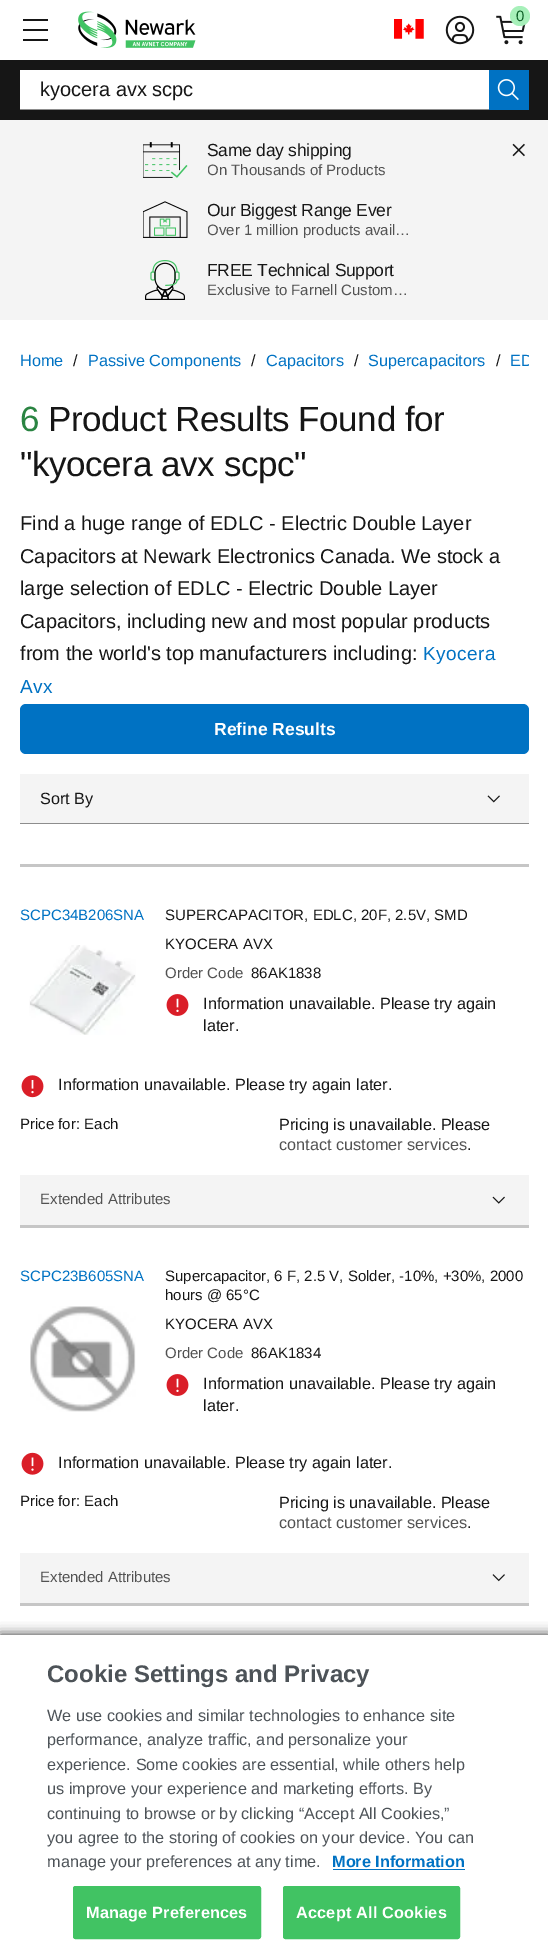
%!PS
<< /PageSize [548 1958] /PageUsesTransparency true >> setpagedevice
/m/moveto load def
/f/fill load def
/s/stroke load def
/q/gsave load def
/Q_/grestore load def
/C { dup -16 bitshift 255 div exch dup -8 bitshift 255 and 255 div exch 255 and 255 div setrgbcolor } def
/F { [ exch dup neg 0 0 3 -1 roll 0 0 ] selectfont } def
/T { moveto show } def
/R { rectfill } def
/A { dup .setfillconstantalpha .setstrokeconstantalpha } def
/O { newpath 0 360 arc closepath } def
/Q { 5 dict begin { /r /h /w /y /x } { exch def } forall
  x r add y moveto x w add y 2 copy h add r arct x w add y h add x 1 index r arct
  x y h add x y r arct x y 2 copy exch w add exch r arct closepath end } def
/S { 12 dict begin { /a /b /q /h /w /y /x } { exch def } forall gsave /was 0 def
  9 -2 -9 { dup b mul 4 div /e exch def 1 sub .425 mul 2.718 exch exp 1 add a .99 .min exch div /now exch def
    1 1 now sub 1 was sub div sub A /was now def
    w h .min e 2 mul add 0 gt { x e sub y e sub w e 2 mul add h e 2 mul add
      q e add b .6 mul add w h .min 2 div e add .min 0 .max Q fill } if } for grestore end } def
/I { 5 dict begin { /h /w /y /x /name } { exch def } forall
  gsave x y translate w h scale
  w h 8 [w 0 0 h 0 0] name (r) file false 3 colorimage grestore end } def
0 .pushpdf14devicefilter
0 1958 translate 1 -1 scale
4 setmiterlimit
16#FFFFFF C
0 0 548 1958 R
16#161616 C
23 19 25 2 R
23 29 25 2 R
23 39 25 2 R
(1.rgb) 78 11 118 37 I
(2.rgb) 394 19 30 20 I
(3.rgb) 445 15 30 30 I
(4.rgb) 496 15 30 30 I
16#A7F0BA C
520 16 10 O f
/LiberationSans-Regular 15 F
16#0E6027 C
(0) 516 21 T
16#161616 C
0 60 548 60 R
16#FFFFFF C
20 70 469 39 R
16#8D8D8D C
20 109 469 1 R
/LiberationSans-Regular 20 F
16#161616 C
(kyocera avx scpc) 40 96 T
16#0072C3 C
489 70 40 40 R
(5.rgb) 497 79 22 22 I
16#F4F4F4 C
0 120 548 200 R
(6.rgb) 143 142 45 36 I
/LiberationSans-Regular 17.5 F
16#161616 C
207 156 m -.25 0 (Same day shipping) ashow
q
208 161 205 19 rectclip
/LiberationSans-Regular 15 F
16#525252 C
(On Thousands of Products) 207 175 T
Q_
(7.rgb) 143 201 45 37 I
q
208 200 205 21 rectclip
207 216 m -.25 0 (Our Biggest Range Ever) ashow
Q_
q
208 221 205 19 rectclip
/LiberationSans-Regular 15 F
16#525252 C
(Over 1 million products avail…) 207 235 T
Q_
(8.rgb) 145 260 40 40 I
207 276 m -.25 0 (FREE Technical Support) ashow
/LiberationSans-Regular 15 F
16#525252 C
(Exclusive to Farnell Custom…) 207 295 T
(9.rgb) 512 143 13 14 I
/LiberationSans-Regular 16.25 F
16#0072C3 C
(Home) 20 366 T
16#161616 C
(/) 73 366 T
16#0072C3 C
(Passive Components) 88 366 T
16#161616 C
(/) 251 366 T
16#0072C3 C
(Capacitors) 266 366 T
16#161616 C
(/) 354 366 T
16#0072C3 C
(Supercapacitors) 368 366 T
16#161616 C
(/) 496 366 T
q
20 350 509 38 rectclip
16#0072C3 C
(ED) 510 366 T
Q_
/LiberationSans-Regular 35 F
16#2A8442 C
20 431 m -.4 0 (6) ashow
16#161616 C
48 431 m -.4 0 (Product Results Found for) ashow
20 476 m -.4 0 ("kyocera avx scpc") ashow
/LiberationSans-Regular 20 F
(Find a huge range of EDLC - Electric Double Layer) 20 530 T
(Capacitors at Newark Electronics Canada. We stock a) 20 563 T
(large selection of EDLC - Electric Double Layer) 20 595 T
(Capacitors, including new and most popular products) 20 628 T
(from the world's top manufacturers including:) 20 660 T
/LiberationSans-Regular 19 F
16#0072C3 C
423 660 m .5 0 (Kyocera) ashow
20 693 m .5 0 (Avx) ashow
20 704 509 50 6 Q f
/LiberationSans-Bold 17.5 F
16#FFFFFF C
(Refine Results) 214 735 T
16#F4F4F4 C
20 774 509 49 R
16#8D8D8D C
20 823 509 1 R
/LiberationSans-Regular 16.25 F
16#161616 C
(Sort By) 40 804 T
(10.rgb) 487 795 13 8 I
16#C6C6C6 C
20 864 509 3 R
/LiberationSans-Regular 15 F
16#0072C3 C
(SCPC34B206SNA) 20 920 T
(11.rgb) 29 945 107 90 I
16#161616 C
(SUPERCAPACITOR, EDLC, 20F, 2.5V, SMD) 165 920 T
(KYOCERA AVX) 165 949 T
16#525252 C
(Order Code) 165 978 T
16#161616 C
(86AK1838) 251 978 T
(12.rgb) 166 994 23 22 I
/LiberationSans-Regular 16.25 F
(Information unavailable. Please try again) 203 1009 T
(later.) 203 1031 T
(13.rgb) 21 1075 23 23 I
(Information unavailable. Please try again later.) 58 1090 T
/LiberationSans-Regular 15 F
(Price for: Each) 20 1129 T
/LiberationSans-Regular 16.25 F
(Pricing is unavailable. Please) 279 1130 T
16#525252 C
(contact customer services) 279 1150 T
16#161616 C
(.) 467 1150 T
16#F4F4F4 C
20 1175 509 50 R
/LiberationSans-Regular 15 F
16#525252 C
(Extended Attributes) 40 1204 T
(14.rgb) 492 1196 13 8 I
16#C6C6C6 C
20 1225 509 3 R
16#0072C3 C
(SCPC23B605SNA) 20 1281 T
(15.rgb) 30 1306 106 106 I
16#161616 C
(Supercapacitor, 6 F, 2.5 V, Solder, -10%, +30%, 2000) 165 1281 T
(hours @ 65°C) 165 1300 T
(KYOCERA AVX) 165 1329 T
16#525252 C
(Order Code) 165 1358 T
16#161616 C
(86AK1834) 251 1358 T
(12.rgb) 166 1374 23 22 I
/LiberationSans-Regular 16.25 F
(Information unavailable. Please try again) 203 1389 T
(later.) 203 1411 T
(16.rgb) 21 1452 23 23 I
(Information unavailable. Please try again later.) 58 1468 T
/LiberationSans-Regular 15 F
(Price for: Each) 20 1506 T
/LiberationSans-Regular 16.25 F
(Pricing is unavailable. Please) 279 1508 T
16#525252 C
(contact customer services) 279 1528 T
16#161616 C
(.) 467 1528 T
16#F4F4F4 C
20 1553 509 50 R
/LiberationSans-Regular 15 F
16#525252 C
(Extended Attributes) 40 1582 T
(17.rgb) 492 1574 13 8 I
16#C6C6C6 C
20 1603 509 3 R
16#000000 C
0 1635 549 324 0 6 .8 S
16#FFFFFF C
0 1635 548 323 R
/LiberationSans-Bold 24 F
16#4D5358 C
(Cookie Settings and Privacy) 47 1682 T
/LiberationSans-Regular 16.25 F
(We use cookies and similar technologies to enhance site) 47 1721 T
(performance, analyze traffic, and personalize your) 47 1745 T
(experience. Some cookies are essential, while others help) 47 1770 T
(us improve your experience and marketing efforts. By) 47 1794 T
(continuing to browse or by clicking “Accept All Cookies,”) 47 1819 T
(you agree to the storing of cookies on your device. You can) 47 1843 T
(manage your preferences at any time.) 47 1867 T
/LiberationSans-Bold 16.25 F
16#0072C3 C
(More Information) 332 1867 T
333 1869 132 1 R
16#41C363 C
73.5 1886.5 187 52 2 Q q f Q_
s
16#FFFFFF C
86 1918 m .2 0 (Manage Preferences) ashow
16#41C363 C
283.5 1886.5 176 52 2 Q q f Q_
s
16#FFFFFF C
296 1918 m .2 0 (Accept All Cookies) ashow
.poppdf14devicefilter showpage
